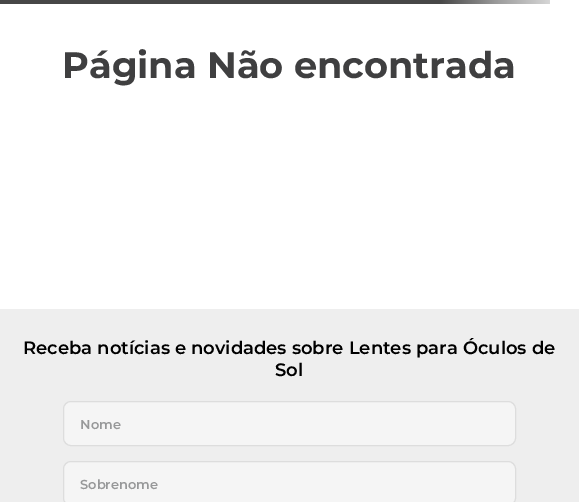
%!PS
<< /PageSize [579 502] >> setpagedevice
/m/moveto load def
/l/rlineto load def
/z/closepath load def
/f/fill load def
/s/stroke load def
/q/gsave load def
/Q_/grestore load def
/C { dup -16 bitshift 255 div exch dup -8 bitshift 255 and 255 div exch 255 and 255 div setrgbcolor } def
/F { [ exch dup neg 0 0 3 -1 roll 0 0 ] selectfont } def
/T { moveto show } def
/R { rectfill } def
/Q { 5 dict begin { /r /h /w /y /x } { exch def } forall
  x r add y moveto x w add y 2 copy h add r arct x w add y h add x 1 index r arct
  x y h add x y r arct x y 2 copy exch w add exch r arct closepath end } def
0 502 translate 1 -1 scale
4 setmiterlimit
16#FFFFFF C
0 0 579 502 R
q 0 0 m 550 0 l 0 4 l -550 0 l z clip newpath
<< /ShadingType 2 /ColorSpace /DeviceRGB /Coords [0 2 550 2] /Extend [true true] /Function << /FunctionType 3 /Domain [0 1] /Functions [<< /FunctionType 2 /Domain [0 1] /C0 [.278 .278 .278] /C1 [.278 .278 .278] /N 1 >> << /FunctionType 2 /Domain [0 1] /C0 [.278 .278 .278] /C1 [.6 .6 .6] /N 1 >> << /FunctionType 2 /Domain [0 1] /C0 [.6 .6 .6] /C1 [.839 .839 .839] /N 1 >>] /Bounds [.8 .9] /Encode [0 1 0 1 0 1] >> >> shfill Q_
/Montserrat-Bold 36.75 F
16#3F3F40 C
(Página Não encontrada) 62 78 T
16#EEEEEE C
0 309 579 193 R
/Montserrat-SemiBold 18 F
16#000000 C
(Receba notícias e novidades sobre Lentes para Óculos de) 23 354 T
(Sol) 275 376 T
16#F5F5F5 C
63.5 401.5 452 44 7.5 Q q f Q_
16#DDDDDD C
s
/Montserrat-SemiBold 13 F
16#979899 C
(Nome) 80 429 T
16#F5F5F5 C
63.5 461.5 452 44 7.5 Q q f Q_
16#DDDDDD C
s
16#979899 C
(Sobrenome) 80 489 T
showpage
